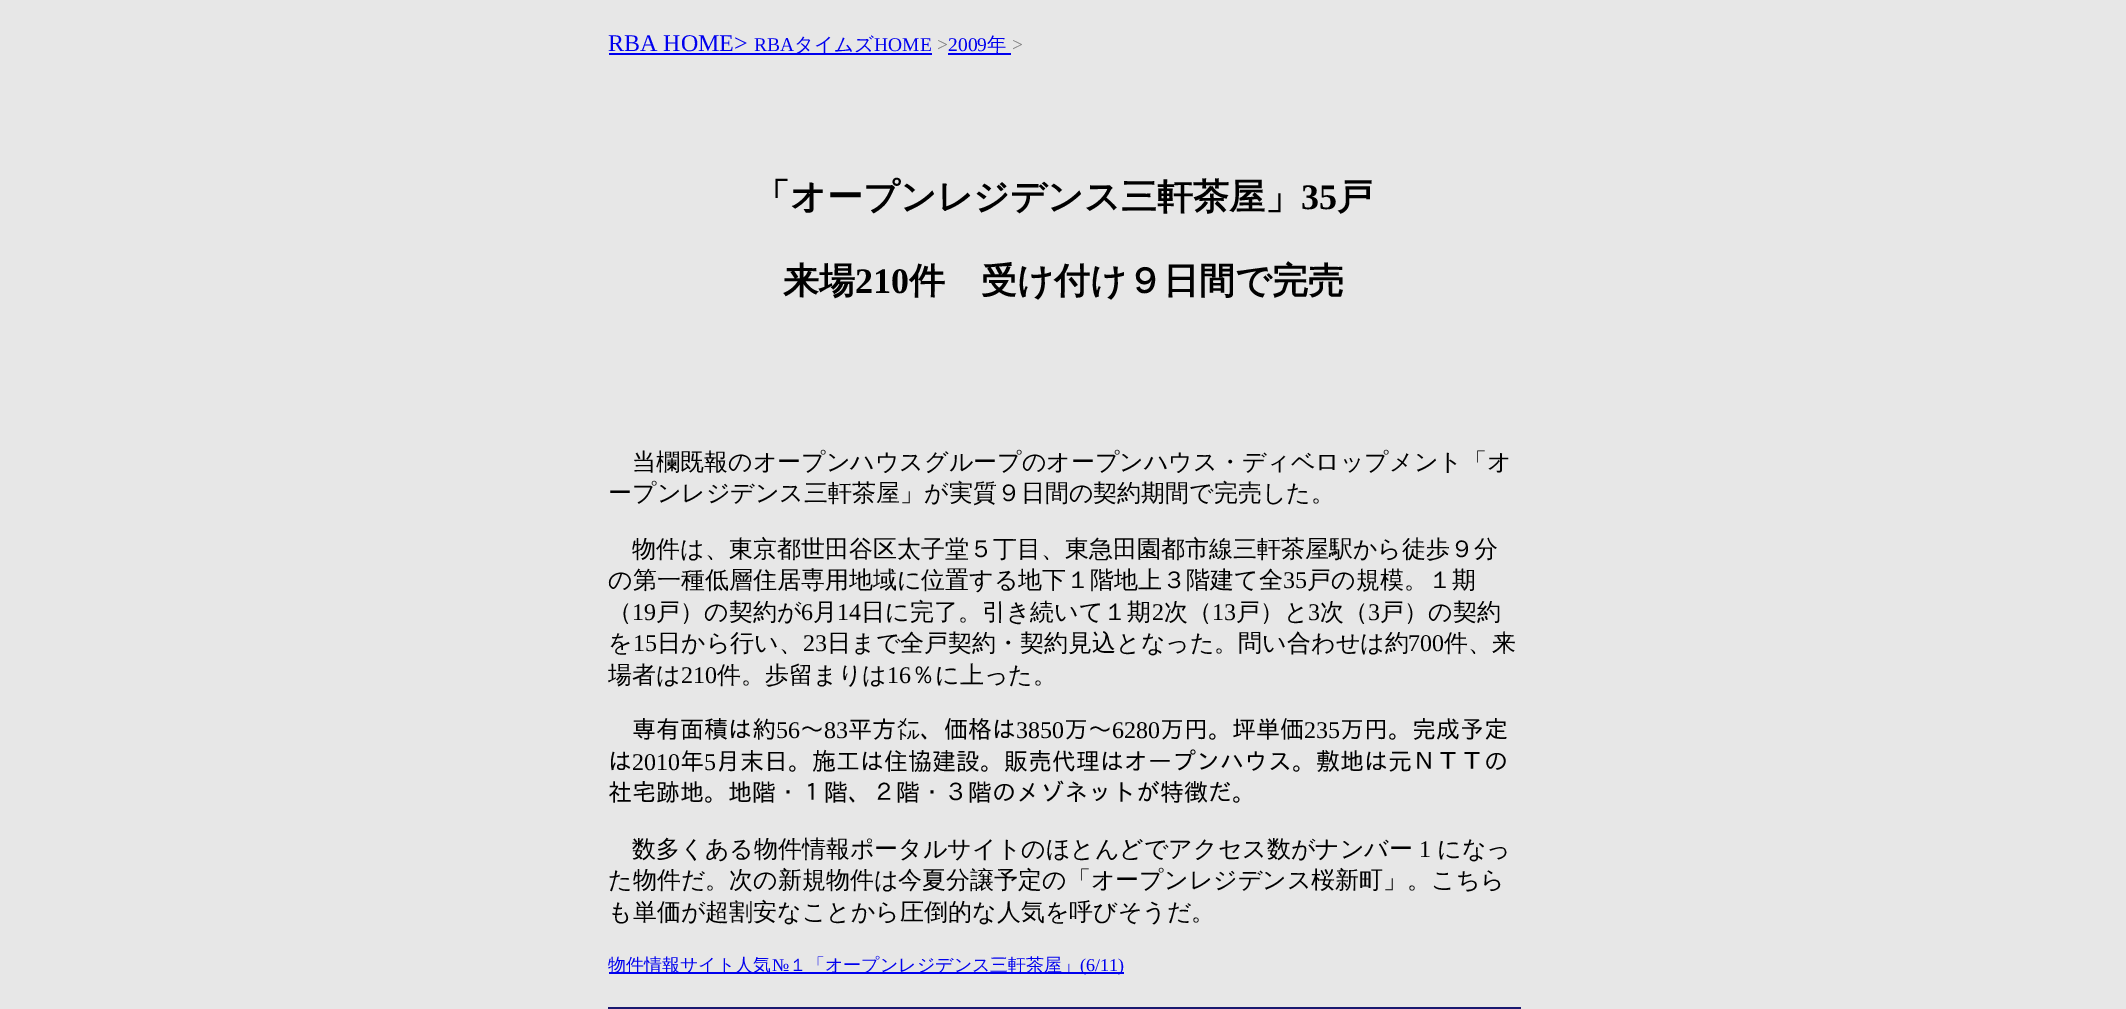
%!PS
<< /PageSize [2126 1009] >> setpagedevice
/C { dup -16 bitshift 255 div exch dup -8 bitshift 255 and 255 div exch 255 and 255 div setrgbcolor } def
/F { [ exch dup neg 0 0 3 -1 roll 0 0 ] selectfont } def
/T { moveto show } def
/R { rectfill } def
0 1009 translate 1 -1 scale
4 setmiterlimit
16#E7E7E7 C
0 0 2126 1009 R
/LiberationSerif-Regular 24 F
16#0000EE C
(RBA HOME>) 608 51 T
609 53 323 2 R
/LiberationSerif-Regular 19.5 F
(RBA) 754 51 T
/WenQuanYiZenHei-Medium 19.5 F
(タイムズ) 794 51 T
/LiberationSerif-Regular 19.5 F
(HOME) 874 51 T
16#808080 C
(>) 937 51 T
16#0000EE C
(2009) 948 51 T
948 53 63 2 R
/WenQuanYiZenHei-Medium 19.5 F
(年) 987 51 T
/LiberationSerif-Regular 19.5 F
16#808080 C
(>) 1012 51 T
/WenQuanYiZenHei-Bold 36 F
16#000000 C
(「オープンレジデンス三軒茶屋」) 754 209 T
/LiberationSerif-Bold 36 F
(35) 1301 209 T
/WenQuanYiZenHei-Bold 36 F
(戸) 1337 209 T
(来場) 783 293 T
/LiberationSerif-Bold 36 F
(210) 855 293 T
/WenQuanYiZenHei-Bold 36 F
(件) 909 293 T
(受け付け９日間で完売) 981 293 T
/WenQuanYiZenHei-Medium 24 F
(当欄既報のオープンハウスグループのオープンハウス・ディベロップメント「オ) 632 470 T
(ープンレジデンス三軒茶屋」が実質９日間の契約期間で完売した。) 608 501 T
(物件は、東京都世田谷区太子堂５丁目、東急田園都市線三軒茶屋駅から徒歩９分) 632 557 T
(の第一種低層住居専用地域に位置する地下１階地上３階建て全) 608 588 T
/LiberationSerif-Regular 24 F
(35) 1283 588 T
/WenQuanYiZenHei-Medium 24 F
(戸の規模。１期) 1307 588 T
(（) 608 620 T
/LiberationSerif-Regular 24 F
(19) 632 620 T
/WenQuanYiZenHei-Medium 24 F
(戸）の契約が) 656 620 T
/LiberationSerif-Regular 24 F
(6) 801 620 T
/WenQuanYiZenHei-Medium 24 F
(月) 813 620 T
/LiberationSerif-Regular 24 F
(14) 837 620 T
/WenQuanYiZenHei-Medium 24 F
(日に完了。引き続いて１期) 861 620 T
/LiberationSerif-Regular 24 F
(2) 1152 620 T
/WenQuanYiZenHei-Medium 24 F
(次（) 1164 620 T
/LiberationSerif-Regular 24 F
(13) 1212 620 T
/WenQuanYiZenHei-Medium 24 F
(戸）と) 1236 620 T
/LiberationSerif-Regular 24 F
(3) 1308 620 T
/WenQuanYiZenHei-Medium 24 F
(次（) 1320 620 T
/LiberationSerif-Regular 24 F
(3) 1368 620 T
/WenQuanYiZenHei-Medium 24 F
(戸）の契約) 1380 620 T
(を) 608 651 T
/LiberationSerif-Regular 24 F
(15) 633 651 T
/WenQuanYiZenHei-Medium 24 F
(日から行い、) 657 651 T
/LiberationSerif-Regular 24 F
(23) 803 651 T
/WenQuanYiZenHei-Medium 24 F
(日まで全戸契約・契約見込となった。問い合わせは約) 827 651 T
/LiberationSerif-Regular 24 F
(700) 1408 651 T
/WenQuanYiZenHei-Medium 24 F
(件、来) 1444 651 T
(場者は) 608 683 T
/LiberationSerif-Regular 24 F
(210) 681 683 T
/WenQuanYiZenHei-Medium 24 F
(件。歩留まりは) 717 683 T
/LiberationSerif-Regular 24 F
(16) 887 683 T
/WenQuanYiZenHei-Medium 24 F
(％に上った。) 911 683 T
/IPAGothic-Regular 24 F
(専有面積は約) 632 738 T
/LiberationSerif-Regular 24 F
(56) 776 738 T
/IPAGothic-Regular 24 F
(～) 800 738 T
/LiberationSerif-Regular 24 F
(83) 824 738 T
/IPAGothic-Regular 24 F
(平方㍍、価格は) 848 738 T
/LiberationSerif-Regular 24 F
(3850) 1016 738 T
/IPAGothic-Regular 24 F
(万～) 1064 738 T
/LiberationSerif-Regular 24 F
(6280) 1112 738 T
/IPAGothic-Regular 24 F
(万円。坪単価) 1160 738 T
/LiberationSerif-Regular 24 F
(235) 1304 738 T
/IPAGothic-Regular 24 F
(万円。完成予定) 1340 738 T
(は) 608 770 T
/LiberationSerif-Regular 24 F
(2010) 632 770 T
/IPAGothic-Regular 24 F
(年 月末日。施工は住協建設。販売代理はオープンハウス。敷地は元ＮＴＴの) 680 770 T
/LiberationSerif-Regular 24 F
(5) 704 770 T
/IPAGothic-Regular 24 F
(社宅跡地。地階・１階、２階・３階のメゾネットが特徴だ。) 608 801 T
/WenQuanYiZenHei-Medium 24 F
(数多くある物件情報ポータルサイトのほとんどでアクセス数がナンバー) 632 857 T
/LiberationSerif-Regular 24 F
(1) 1419 857 T
/WenQuanYiZenHei-Medium 24 F
(になっ) 1437 857 T
(た物件だ。次の新規物件は今夏分譲予定の「オープンレジデンス桜新町」。こちら) 608 888 T
(も単価が超割安なことから圧倒的な人気を呼びそうだ。) 608 920 T
16#0000EE C
609 972 515 2 R
/WenQuanYiZenHei-Medium 18 F
(物件情報サイト人気) 608 971 T
/LiberationSerif-Regular 18 F
(№) 772 971 T
/WenQuanYiZenHei-Medium 18 F
(１「オープンレジデンス三軒茶屋」) 789 971 T
/LiberationSerif-Regular 18 F
(\(6/11\)) 1080 971 T
16#191970 C
608 1007 913 2 R
showpage
